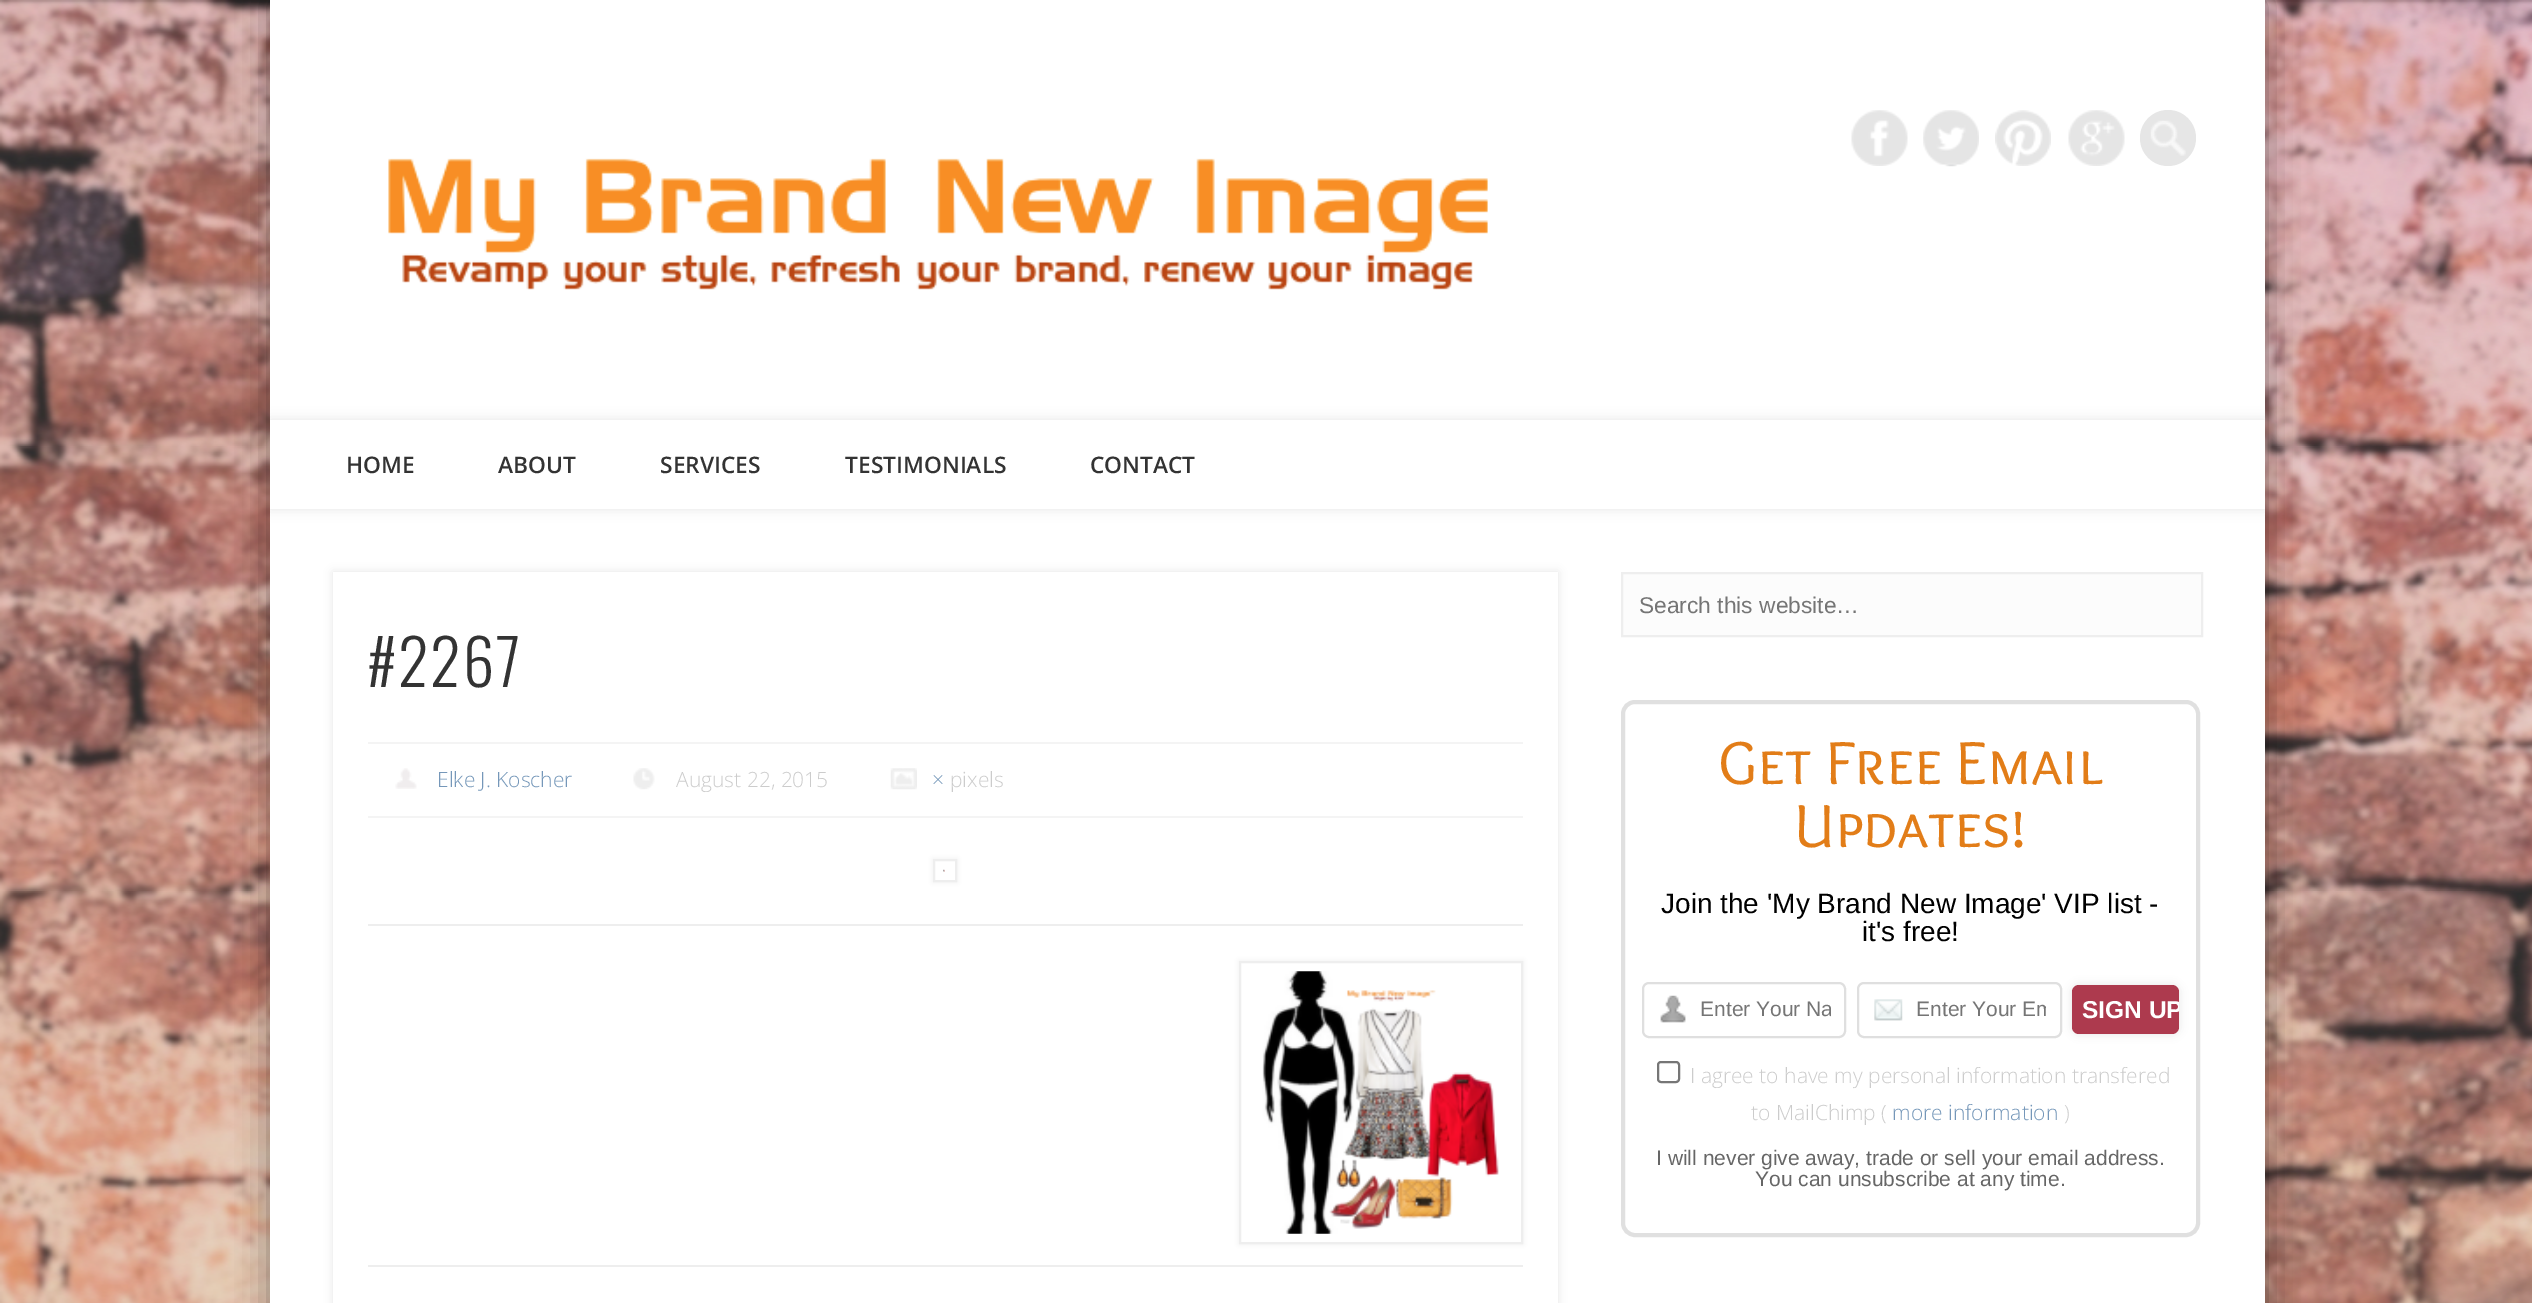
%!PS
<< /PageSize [2532 1303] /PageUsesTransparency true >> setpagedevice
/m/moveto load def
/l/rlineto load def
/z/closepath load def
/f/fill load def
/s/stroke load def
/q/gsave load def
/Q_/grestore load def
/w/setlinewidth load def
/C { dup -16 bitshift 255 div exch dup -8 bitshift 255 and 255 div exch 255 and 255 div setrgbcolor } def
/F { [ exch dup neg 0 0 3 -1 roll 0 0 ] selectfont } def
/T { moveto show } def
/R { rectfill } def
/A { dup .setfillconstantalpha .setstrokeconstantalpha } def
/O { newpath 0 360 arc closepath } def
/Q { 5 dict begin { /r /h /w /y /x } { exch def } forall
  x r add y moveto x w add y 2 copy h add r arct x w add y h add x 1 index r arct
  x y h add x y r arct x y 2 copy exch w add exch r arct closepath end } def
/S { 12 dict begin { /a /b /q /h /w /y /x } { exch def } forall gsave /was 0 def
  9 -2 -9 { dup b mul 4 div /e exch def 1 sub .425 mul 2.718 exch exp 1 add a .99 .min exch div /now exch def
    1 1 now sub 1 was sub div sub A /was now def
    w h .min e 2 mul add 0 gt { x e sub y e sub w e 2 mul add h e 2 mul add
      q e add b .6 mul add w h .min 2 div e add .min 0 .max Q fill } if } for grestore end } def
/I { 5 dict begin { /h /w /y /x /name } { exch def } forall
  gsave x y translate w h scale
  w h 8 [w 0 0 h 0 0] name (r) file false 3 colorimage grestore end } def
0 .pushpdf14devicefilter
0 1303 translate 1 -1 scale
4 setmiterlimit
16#FFFFFF C
0 0 2532 1303 R
(1.rgb) 0 0 2532 1303 I
16#000000 C
270 0 1995 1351 0 16 .4 S
16#FFFFFF C
270 0 1995 1303 R
(2.rgb) 1851 110 57 56 I
(3.rgb) 1923 110 56 57 I
(4.rgb) 1995 110 56 56 I
(5.rgb) 2068 110 57 56 I
16#E6E6E6 C
2168 138 28 O f
(6.rgb) 2150 120 36 36 I
(7.rgb) 388 158 1100 132 I
q
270 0 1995 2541 rectclip
16#000000 C
270 420 1995 89 0 6 .1 S
Q_
16#FFFFFF C
270 420 1995 89 R
/OpenSans-SemiBold 22.75 F
16#333333 C
(HOME) 346 473 T
(ABOUT) 498 473 T
(SERVICES) 660 473 T
(TESTIMONIALS) 845 473 T
(CONTACT) 1090 473 T
16#000000 C
333 572 1225 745 0 4.5 .1 S
16#FFFFFF C
333 572 1225 731 R
/Oswald-Light 63 F
16#333333 C
367 687 m 1.75 0 (#2267) ashow
16#F4F4F4 C
368 742 1155 2 R
368 816 1155 2 R
(8.rgb) 395 768 22 21 I
/OpenSans-Light 21 F
16#7597B9 C
(Elke J. Koscher) 437 787 T
(9.rgb) 633 768 22 22 I
16#CCCCCC C
(August 22, 2015) 676 787 T
(10.rgb) 890 768 27 22 I
16#7597B9 C
(×) 932 787 T
16#CCCCCC C
(pixels) 950 787 T
16#EEEEEE C
933 859 24 23 0 2.5 1 S
16#FFFFFF C
934 860 m 22 0 l 0 21 l -22 0 l z q f Q_
16#EEEEEE C
2 w
s
(11.rgb) 943 869 2 3 I
368 924 1155 2 R
368 1265 1155 2 R
1239 961 284 283 0 2.5 1 S
16#FFFFFF C
1240 962 m 282 0 l 0 281 l -282 0 l z q f Q_
16#EEEEEE C
s
(12.rgb) 1262 971 237 263 I
16#FCFCFC C
1622 573 m 580 0 l 0 63 l -580 0 l z q f Q_
16#EEEEEE C
s
/LiberationSans-Regular 22.75 F
16#757575 C
(Search this website…) 1639 613 T
16#E0E0E0 C
4 w
1623 702 575 533 12 Q s
/OverlockSC-Regular 63 F
16#E27D18 C
(Get Free Email) 1718 784 T
(Updates!) 1794 847 T
/LiberationSans-Regular 28 F
16#000000 C
(Join the 'My Brand New Image' VIP list -) 1661 913 T
(it's free!) 1862 941 T
(13.rgb) 1660 995 26 28 I
16#DFDFDF C
2 w
1643 983 202 54 6 Q s
q
1701 998 130 24 rectclip
/LiberationSans-Regular 21 F
16#757575 C
(Enter Your Na) 1700 1016 T
Q_
(14.rgb) 1874 999 29 22 I
1858 983 203 54 6 Q s
q
1916 998 130 24 rectclip
/LiberationSans-Regular 21 F
16#757575 C
(Enter Your Em) 1916 1016 T
Q_
16#000000 C
2072 985 107 49 7 4.5 .1 S
16#AD3A4E C
2072 985 107 49 7 Q f
q
2072 985 107 49 7 Q clip newpath
/LiberationSans-Bold 24.5 F
16#FFFFFF C
(SIGN UP) 2082 1018 T
Q_
16#767676 C
1658 1062 21 20 3 Q s
/OpenSans-Light 21 F
16#CCCCCC C
(I agree to have my personal information transfered) 1690 1083 T
(to MailChimp \() 1751 1120 T
16#7597B9 C
(more information) 1892 1120 T
16#CCCCCC C
(\)) 2064 1120 T
/LiberationSans-Regular 21 F
16#666666 C
(I will never give away, trade or sell your email address.) 1656 1165 T
(You can unsubscribe at any time.) 1755 1186 T
.poppdf14devicefilter showpage
